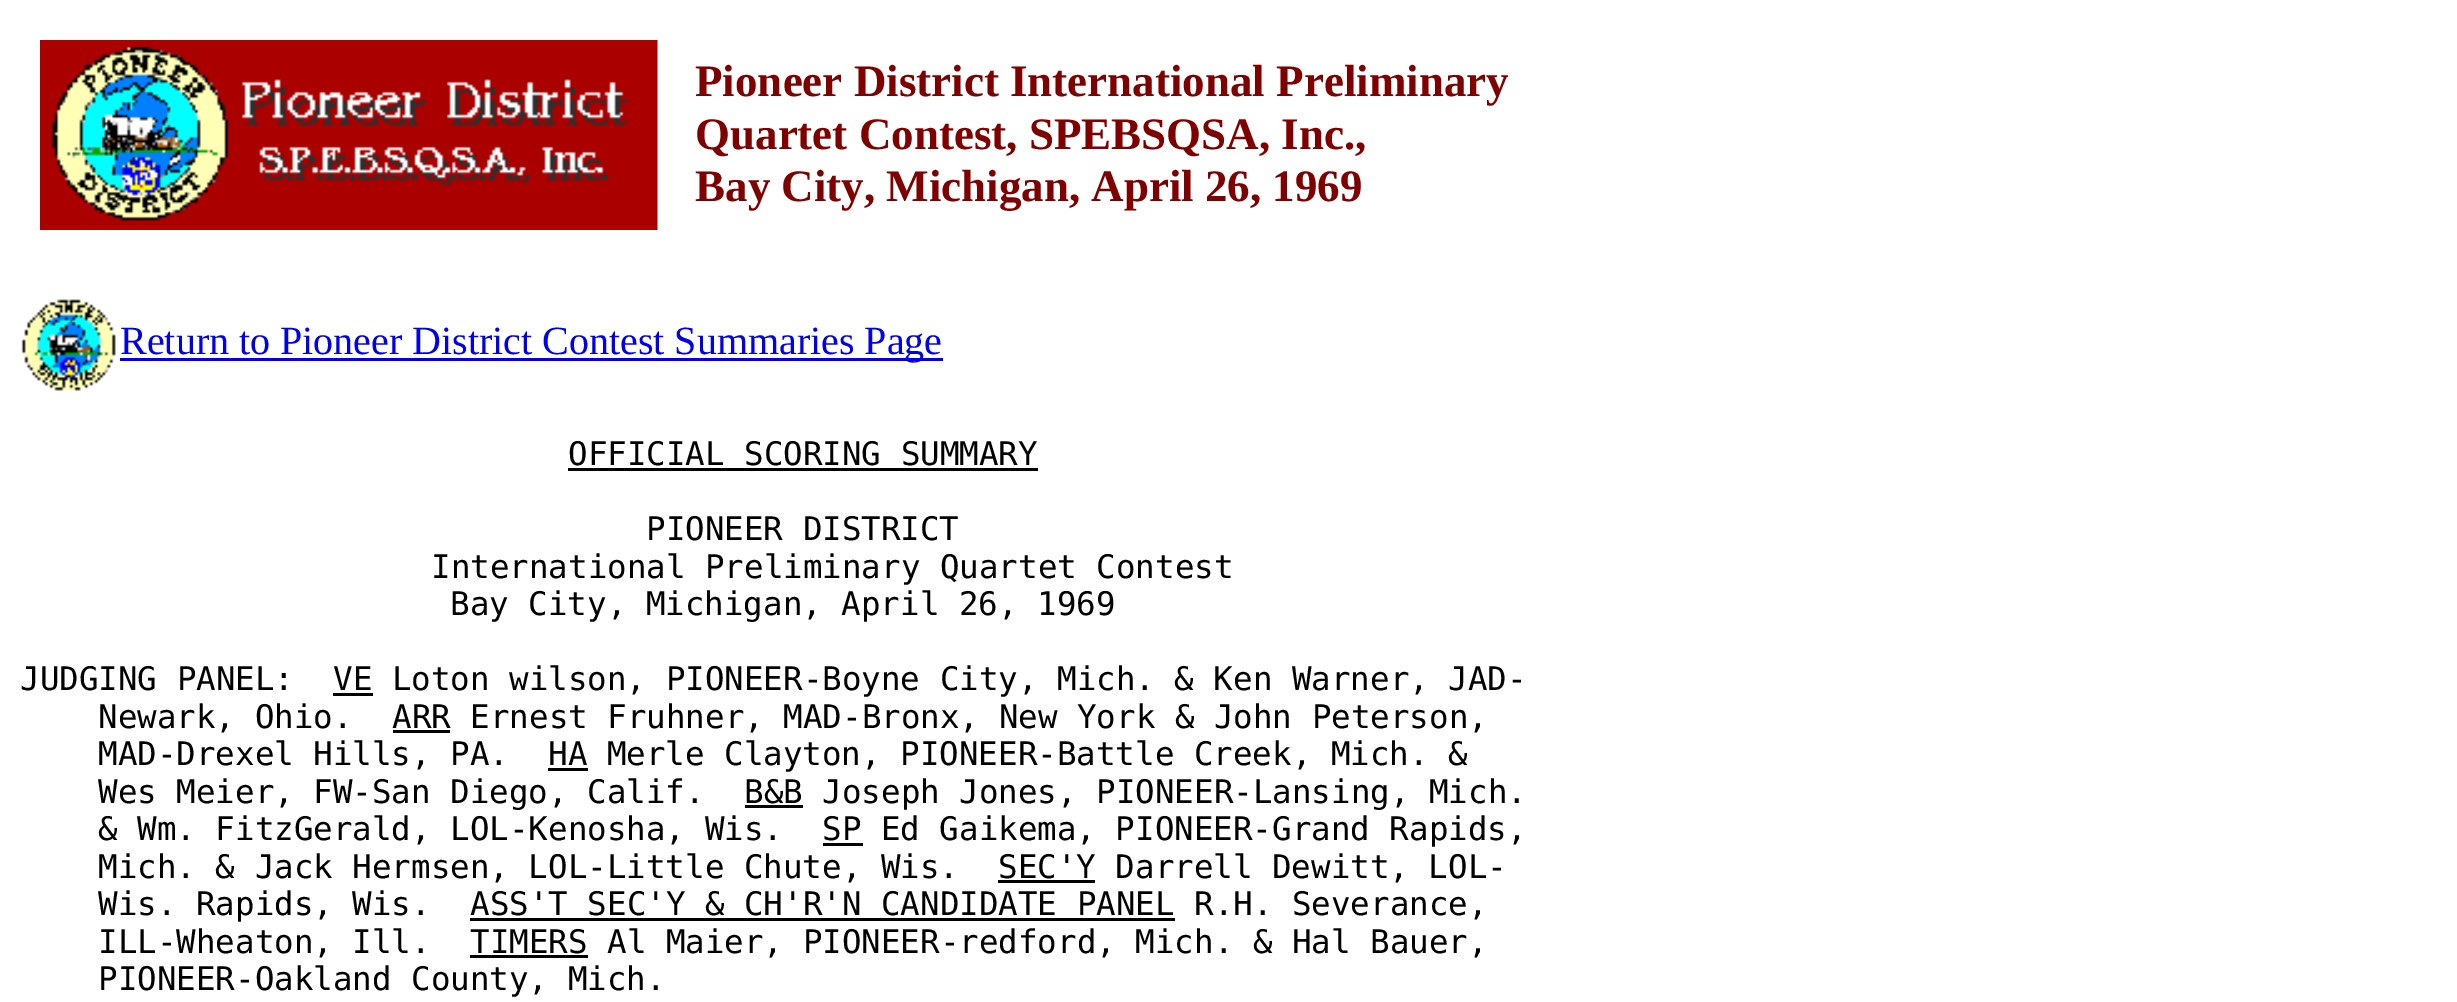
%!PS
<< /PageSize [2457 1002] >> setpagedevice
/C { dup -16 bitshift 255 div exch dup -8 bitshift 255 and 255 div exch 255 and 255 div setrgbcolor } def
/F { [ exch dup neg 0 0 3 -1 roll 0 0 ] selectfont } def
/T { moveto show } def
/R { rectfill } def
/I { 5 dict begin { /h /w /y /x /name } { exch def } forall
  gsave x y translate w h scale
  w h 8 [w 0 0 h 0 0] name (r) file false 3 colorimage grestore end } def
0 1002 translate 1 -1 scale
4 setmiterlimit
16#FFFFFF C
0 0 2457 1002 R
(1.rgb) 40 40 618 190 I
/LiberationSerif-Bold 45 F
16#800000 C
(Pioneer District International Preliminary) 695 96 T
(Quartet Contest, SPEBSQSA, Inc.,) 695 149 T
(Bay City, Michigan, April 26, 1969) 695 201 T
(2.rgb) 21 299 95 92 I
16#0000EE C
120 358 823 3 R
/LiberationSerif-Regular 40 F
(Return to Pioneer District Contest Summaries Page) 120 354 T
/DejaVuSansMono-Regular 32.5 F
16#000000 C
(OFFICIAL SCORING SUMMARY) 568 465 T
568 468 470 3 R
(PIONEER DISTRICT) 646 540 T
(International Preliminary Quartet Contest) 431 578 T
(Bay City, Michigan, April 26, 1969) 450 615 T
(JUDGING PANEL:) 20 690 T
333 693 40 3 R
(VE Loton wilson, PIONEER-Boyne City, Mich. & Ken Warner, JAD-) 333 690 T
(Newark, Ohio.) 98 728 T
393 730 57 3 R
(ARR Ernest Fruhner, MAD-Bronx, New York & John Peterson,) 392 728 T
(MAD-Drexel Hills, PA.) 98 765 T
548 768 40 3 R
(HA Merle Clayton, PIONEER-Battle Creek, Mich. &) 548 765 T
(Wes Meier, FW-San Diego, Calif.) 98 803 T
745 805 58 3 R
(B&B Joseph Jones, PIONEER-Lansing, Mich.) 744 803 T
(& Wm. FitzGerald, LOL-Kenosha, Wis.) 98 840 T
823 843 40 3 R
(SP Ed Gaikema, PIONEER-Grand Rapids,) 822 840 T
(Mich. & Jack Hermsen, LOL-Little Chute, Wis.) 98 878 T
998 880 97 3 R
(SEC'Y Darrell Dewitt, LOL-) 998 878 T
(Wis. Rapids, Wis.) 98 915 T
470 918 705 3 R
(ASS'T SEC'Y & CH'R'N CANDIDATE PANEL R.H. Severance,) 470 915 T
(ILL-Wheaton, Ill.) 98 953 T
470 955 118 3 R
(TIMERS Al Maier, PIONEER-redford, Mich. & Hal Bauer,) 470 953 T
(PIONEER-Oakland County, Mich.) 98 990 T
showpage
